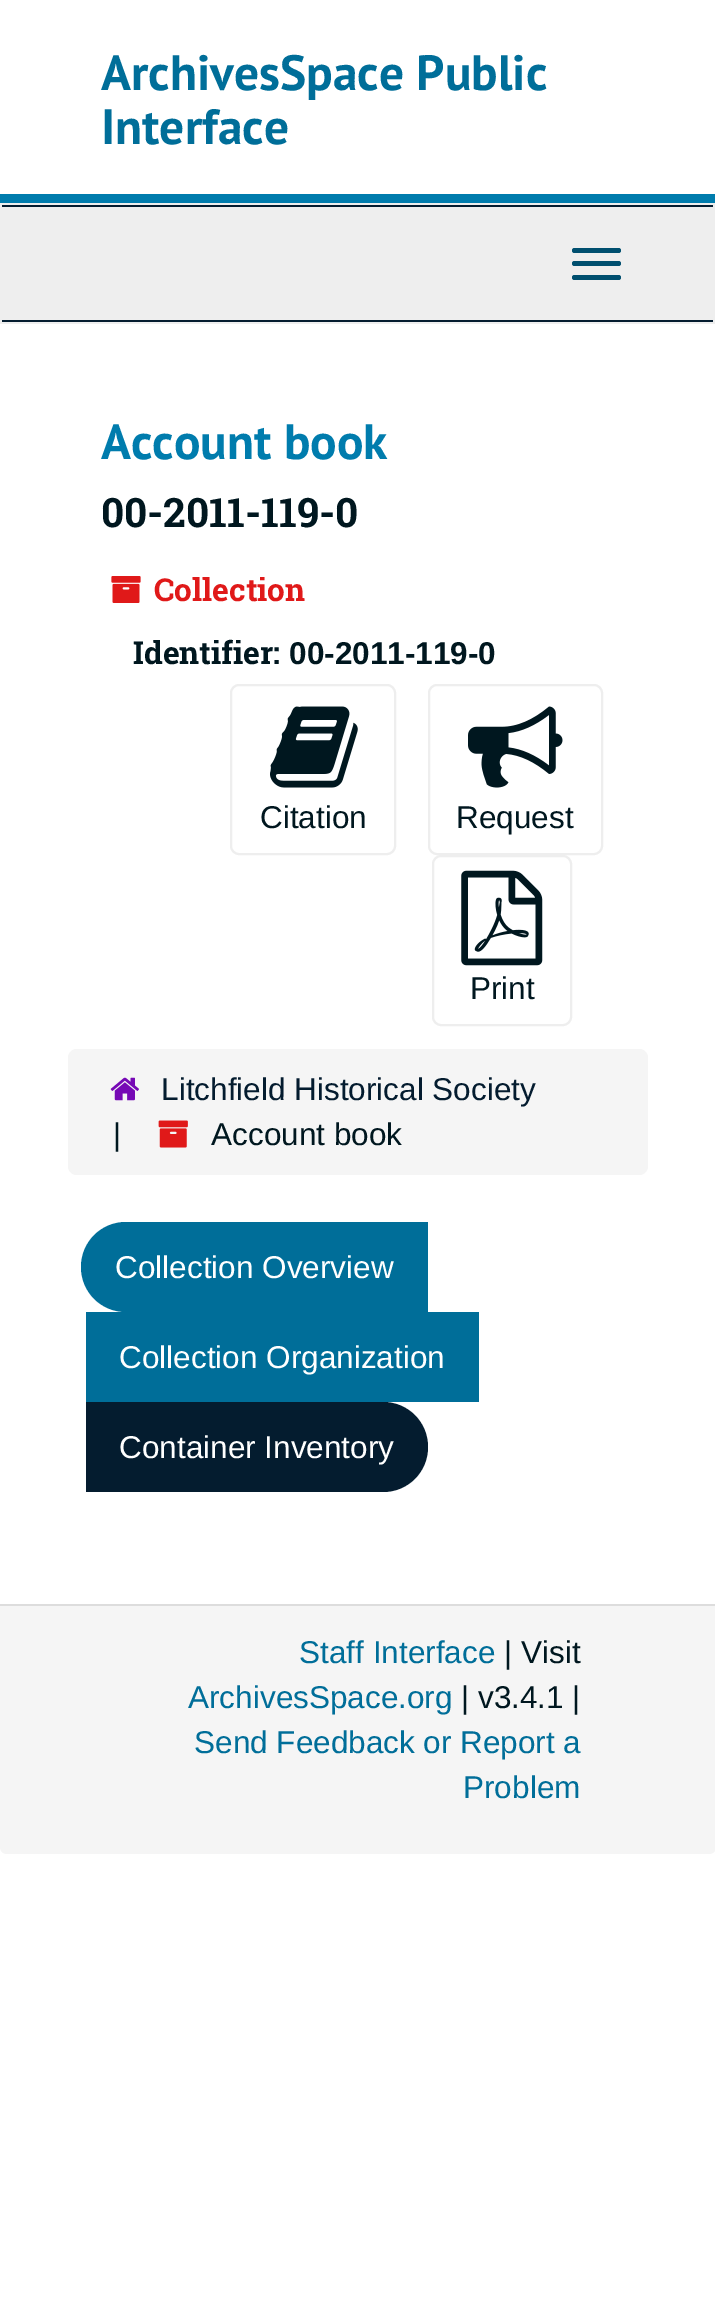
%!PS
<< /PageSize [715 2324] >> setpagedevice
/m/moveto load def
/l/rlineto load def
/c/rcurveto load def
/z/closepath load def
/f/fill load def
/s/stroke load def
/w/setlinewidth load def
/C { dup -16 bitshift 255 div exch dup -8 bitshift 255 and 255 div exch 255 and 255 div setrgbcolor } def
/F { [ exch dup neg 0 0 3 -1 roll 0 0 ] selectfont } def
/T { moveto show } def
/R { rectfill } def
/Q { 5 dict begin { /r /h /w /y /x } { exch def } forall
  x r add y moveto x w add y 2 copy h add r arct x w add y h add x 1 index r arct
  x y h add x y r arct x y 2 copy exch w add exch r arct closepath end } def
/I { 5 dict begin { /h /w /y /x /name } { exch def } forall
  gsave x y translate w h scale
  w h 8 [w 0 0 h 0 0] name (r) file false 3 colorimage grestore end } def
0 2324 translate 1 -1 scale
4 setmiterlimit
16#FFFFFF C
0 0 715 2324 R
16#007CAD C
0 194 715 9 R
/PTSans-Bold 49.5 F
16#006E99 C
(ArchivesSpace Public) 101 90 T
(Interface) 101 144 T
16#EEEEEE C
0 203 715 121 R
16#041C2F C
2 205 711 2 R
2 320 711 2 R
16#004F6F C
572 248 49 5 2.5 Q f
572 261 49 5 2.5 Q f
572 275 49 5 2.5 Q f
16#007CAD C
(Account book) 101 459 T
/RobotoSlab-Bold 40.5 F
16#00171F C
(00-2011-119-0) 101 527 T
(1.rgb) 111 576 30 27 I
/RobotoSlab-Bold 31.5 F
16#E01919 C
(Collection) 154 601 T
16#00171F C
(Identifier:) 133 664 T
/LiberationSans-Bold 31.5 F
(00-2011-119-0) 289 664 T
16#EEEEEE C
2 w
231 685 164 169 8 Q s
(2.rgb) 270 706 88 82 I
/LiberationSans-Regular 31.5 F
16#00171F C
(Citation) 260 828 T
16#EEEEEE C
429 685 173 169 8 Q s
(3.rgb) 468 706 95 82 I
16#00171F C
(Request) 456 828 T
16#EEEEEE C
433 856 138 169 8 Q s
(4.rgb) 461 870 82 96 I
16#00171F C
(Print) 470 999 T
16#F5F5F5 C
68 1049 580 126 9 Q f
(5.rgb) 110 1077 29 24 I
16#041C2F C
(Litchfield Historical Society) 161 1100 T
16#00171F C
(|) 113 1145 T
(6.rgb) 158 1120 30 28 I
(Account book) 211 1145 T
16#006E99 C
126 1222 m 302 0 l 0 90 l -302 0 l -25 0 -45 -20 -45 -45 c 0 -25 20 -45 45 -45 c z f
16#FFFFFF C
(Collection Overview) 115 1278 T
16#006E99 C
86 1312 393 90 R
16#FFFFFF C
(Collection Organization) 119 1368 T
16#041C2F C
86 1402 m 297 0 l 25 0 45 20 45 45 c 0 25 -20 45 -45 45 c -297 0 l z f
16#FFFFFF C
(Container Inventory) 119 1458 T
16#F5F5F5 C
0 1604 m 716 0 l 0 243 l 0 4 -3 7 -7 7 c -702 0 l -4 0 -7 -3 -7 -7 c z f
16#DDDDDD C
0 1604 715 2 R
16#006E99 C
(Staff Interface) 299 1663 T
16#00171F C
(| Visit) 504 1663 T
16#006E99 C
(ArchivesSpace.org) 188 1708 T
16#00171F C
(| v3.4.1 |) 461 1708 T
16#006E99 C
(Send Feedback or Report a) 194 1753 T
(Problem) 463 1798 T
showpage
